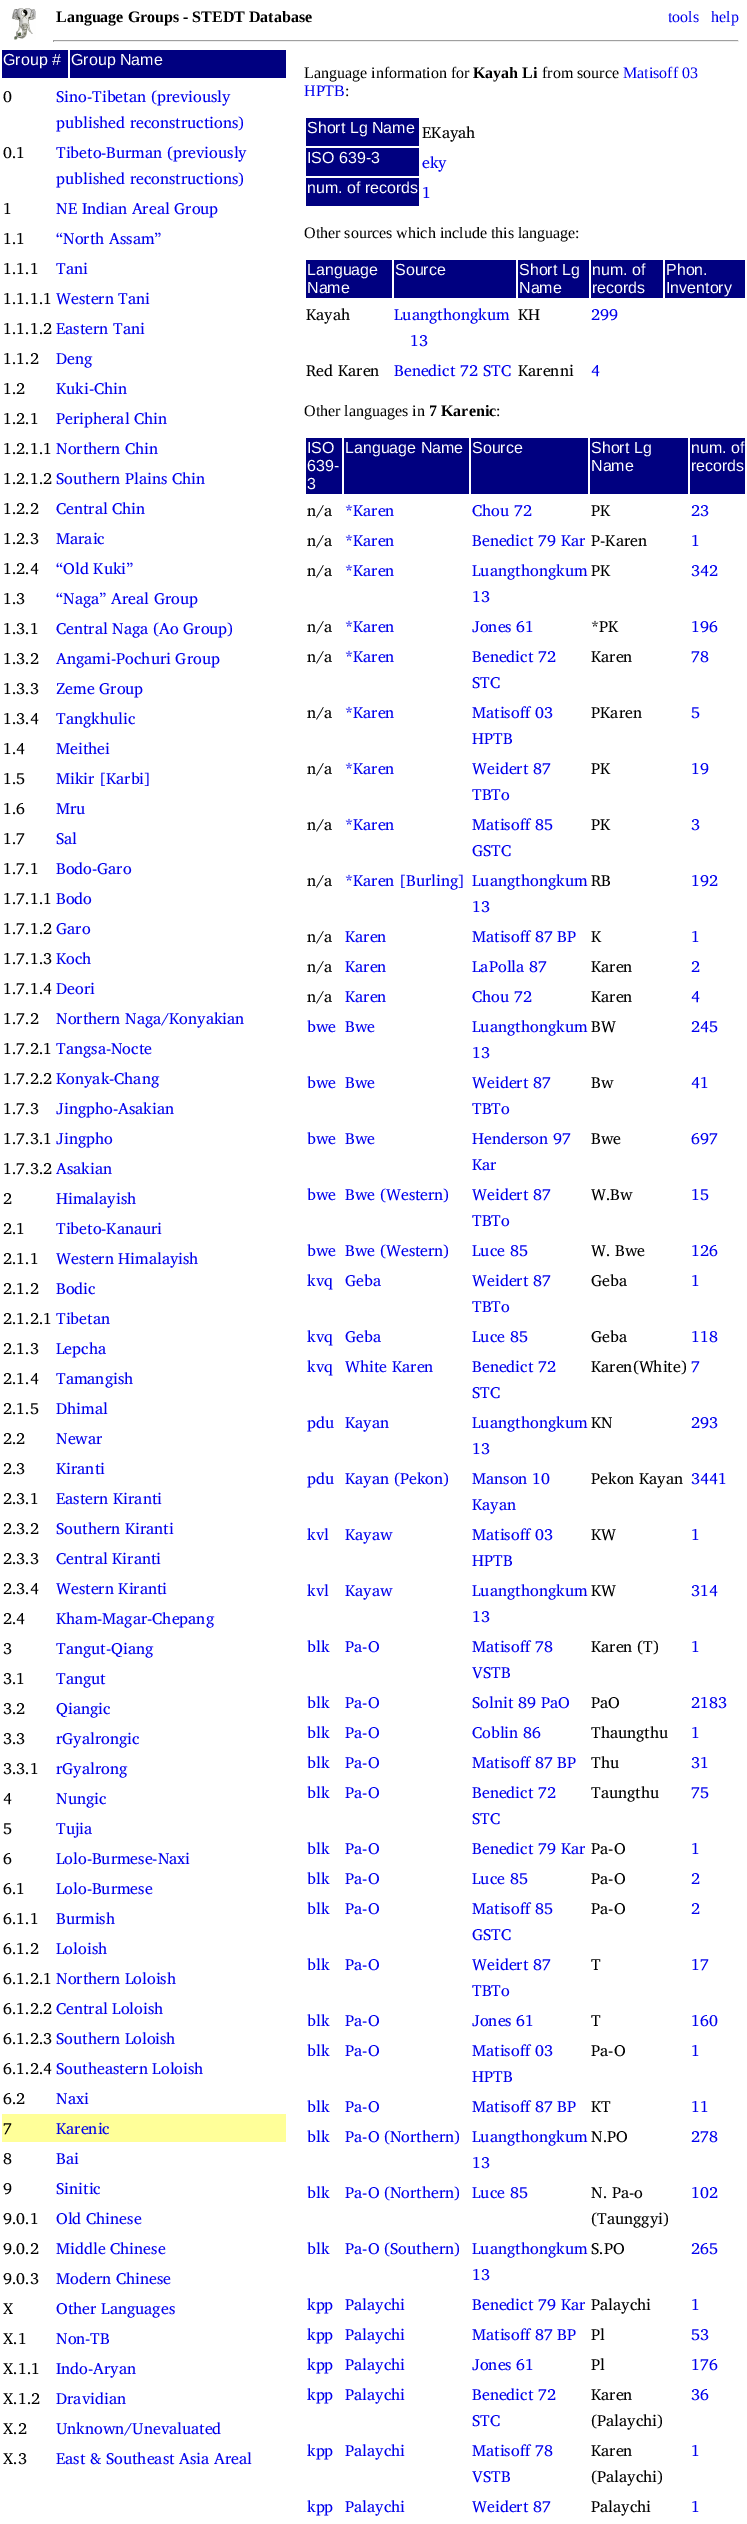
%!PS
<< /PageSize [747 2524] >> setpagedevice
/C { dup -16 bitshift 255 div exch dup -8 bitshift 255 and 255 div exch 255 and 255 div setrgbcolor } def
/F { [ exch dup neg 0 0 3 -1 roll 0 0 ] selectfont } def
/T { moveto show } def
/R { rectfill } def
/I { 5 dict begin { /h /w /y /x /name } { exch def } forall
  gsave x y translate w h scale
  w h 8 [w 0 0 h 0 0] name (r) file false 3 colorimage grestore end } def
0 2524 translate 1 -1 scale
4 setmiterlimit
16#FFFFFF C
0 0 747 2524 R
(1.rgb) 11 8 25 32 I
/LiberationSerif-Bold 16 F
16#000000 C
(Language Groups - STEDT Database) 56 22 T
/LiberationSerif-Regular 16 F
16#0000EE C
(tools) 668 22 T
(help) 711 22 T
16#9F9F9F C
53 40 686 1 R
16#EEEEEE C
738 40 1 2 R
53 41 686 1 R
16#9F9F9F C
53 40 1 2 R
16#000080 C
2 50 66 28 R
/LiberationSans-Regular 16 F
16#FFFFFF C
(Group #) 3 65 T
16#000080 C
70 50 216 28 R
16#FFFFFF C
(Group Name) 71 65 T
/CharisSIL-Regular 16 F
16#000000 C
(0) 3 102 T
16#0000EE C
(Sino-Tibetan \(previously) 56 102 T
(published reconstructions\)) 56 128 T
16#000000 C
(0.1) 3 158 T
16#0000EE C
(Tibeto-Burman \(previously) 56 158 T
(published reconstructions\)) 56 184 T
16#000000 C
(1) 3 214 T
16#0000EE C
(NE Indian Areal Group) 56 214 T
16#000000 C
(1.1) 3 244 T
16#0000EE C
(“North Assam”) 56 244 T
16#000000 C
(1.1.1) 3 274 T
16#0000EE C
(Tani) 56 274 T
16#000000 C
(1.1.1.1) 3 304 T
16#0000EE C
(Western Tani) 56 304 T
16#000000 C
(1.1.1.2) 3 334 T
16#0000EE C
(Eastern Tani) 56 334 T
16#000000 C
(1.1.2) 3 364 T
16#0000EE C
(Deng) 56 364 T
16#000000 C
(1.2) 3 394 T
16#0000EE C
(Kuki-Chin) 56 394 T
16#000000 C
(1.2.1) 3 424 T
16#0000EE C
(Peripheral Chin) 56 424 T
16#000000 C
(1.2.1.1) 3 454 T
16#0000EE C
(Northern Chin) 56 454 T
16#000000 C
(1.2.1.2) 3 484 T
16#0000EE C
(Southern Plains Chin) 56 484 T
16#000000 C
(1.2.2) 3 514 T
16#0000EE C
(Central Chin) 56 514 T
16#000000 C
(1.2.3) 3 544 T
16#0000EE C
(Maraic) 56 544 T
16#000000 C
(1.2.4) 3 574 T
16#0000EE C
(“Old Kuki”) 56 574 T
16#000000 C
(1.3) 3 604 T
16#0000EE C
(“Naga” Areal Group) 56 604 T
16#000000 C
(1.3.1) 3 634 T
16#0000EE C
(Central Naga \(Ao Group\)) 56 634 T
16#000000 C
(1.3.2) 3 664 T
16#0000EE C
(Angami-Pochuri Group) 56 664 T
16#000000 C
(1.3.3) 3 694 T
16#0000EE C
(Zeme Group) 56 694 T
16#000000 C
(1.3.4) 3 724 T
16#0000EE C
(Tangkhulic) 56 724 T
16#000000 C
(1.4) 3 754 T
16#0000EE C
(Meithei) 56 754 T
16#000000 C
(1.5) 3 784 T
16#0000EE C
(Mikir [Karbi]) 56 784 T
16#000000 C
(1.6) 3 814 T
16#0000EE C
(Mru) 56 814 T
16#000000 C
(1.7) 3 844 T
16#0000EE C
(Sal) 56 844 T
16#000000 C
(1.7.1) 3 874 T
16#0000EE C
(Bodo-Garo) 56 874 T
16#000000 C
(1.7.1.1) 3 904 T
16#0000EE C
(Bodo) 56 904 T
16#000000 C
(1.7.1.2) 3 934 T
16#0000EE C
(Garo) 56 934 T
16#000000 C
(1.7.1.3) 3 964 T
16#0000EE C
(Koch) 56 964 T
16#000000 C
(1.7.1.4) 3 994 T
16#0000EE C
(Deori) 56 994 T
16#000000 C
(1.7.2) 3 1024 T
16#0000EE C
(Northern Naga/Konyakian) 56 1024 T
16#000000 C
(1.7.2.1) 3 1054 T
16#0000EE C
(Tangsa-Nocte) 56 1054 T
16#000000 C
(1.7.2.2) 3 1084 T
16#0000EE C
(Konyak-Chang) 56 1084 T
16#000000 C
(1.7.3) 3 1114 T
16#0000EE C
(Jingpho-Asakian) 56 1114 T
16#000000 C
(1.7.3.1) 3 1144 T
16#0000EE C
(Jingpho) 56 1144 T
16#000000 C
(1.7.3.2) 3 1174 T
16#0000EE C
(Asakian) 56 1174 T
16#000000 C
(2) 3 1204 T
16#0000EE C
(Himalayish) 56 1204 T
16#000000 C
(2.1) 3 1234 T
16#0000EE C
(Tibeto-Kanauri) 56 1234 T
16#000000 C
(2.1.1) 3 1264 T
16#0000EE C
(Western Himalayish) 56 1264 T
16#000000 C
(2.1.2) 3 1294 T
16#0000EE C
(Bodic) 56 1294 T
16#000000 C
(2.1.2.1) 3 1324 T
16#0000EE C
(Tibetan) 56 1324 T
16#000000 C
(2.1.3) 3 1354 T
16#0000EE C
(Lepcha) 56 1354 T
16#000000 C
(2.1.4) 3 1384 T
16#0000EE C
(Tamangish) 56 1384 T
16#000000 C
(2.1.5) 3 1414 T
16#0000EE C
(Dhimal) 56 1414 T
16#000000 C
(2.2) 3 1444 T
16#0000EE C
(Newar) 56 1444 T
16#000000 C
(2.3) 3 1474 T
16#0000EE C
(Kiranti) 56 1474 T
16#000000 C
(2.3.1) 3 1504 T
16#0000EE C
(Eastern Kiranti) 56 1504 T
16#000000 C
(2.3.2) 3 1534 T
16#0000EE C
(Southern Kiranti) 56 1534 T
16#000000 C
(2.3.3) 3 1564 T
16#0000EE C
(Central Kiranti) 56 1564 T
16#000000 C
(2.3.4) 3 1594 T
16#0000EE C
(Western Kiranti) 56 1594 T
16#000000 C
(2.4) 3 1624 T
16#0000EE C
(Kham-Magar-Chepang) 56 1624 T
16#000000 C
(3) 3 1654 T
16#0000EE C
(Tangut-Qiang) 56 1654 T
16#000000 C
(3.1) 3 1684 T
16#0000EE C
(Tangut) 56 1684 T
16#000000 C
(3.2) 3 1714 T
16#0000EE C
(Qiangic) 56 1714 T
16#000000 C
(3.3) 3 1744 T
16#0000EE C
(rGyalrongic) 56 1744 T
16#000000 C
(3.3.1) 3 1774 T
16#0000EE C
(rGyalrong) 56 1774 T
16#000000 C
(4) 3 1804 T
16#0000EE C
(Nungic) 56 1804 T
16#000000 C
(5) 3 1834 T
16#0000EE C
(Tujia) 56 1834 T
16#000000 C
(6) 3 1864 T
16#0000EE C
(Lolo-Burmese-Naxi) 56 1864 T
16#000000 C
(6.1) 3 1894 T
16#0000EE C
(Lolo-Burmese) 56 1894 T
16#000000 C
(6.1.1) 3 1924 T
16#0000EE C
(Burmish) 56 1924 T
16#000000 C
(6.1.2) 3 1954 T
16#0000EE C
(Loloish) 56 1954 T
16#000000 C
(6.1.2.1) 3 1984 T
16#0000EE C
(Northern Loloish) 56 1984 T
16#000000 C
(6.1.2.2) 3 2014 T
16#0000EE C
(Central Loloish) 56 2014 T
16#000000 C
(6.1.2.3) 3 2044 T
16#0000EE C
(Southern Loloish) 56 2044 T
16#000000 C
(6.1.2.4) 3 2074 T
16#0000EE C
(Southeastern Loloish) 56 2074 T
16#000000 C
(6.2) 3 2104 T
16#0000EE C
(Naxi) 56 2104 T
16#FFFF99 C
2 2114 284 28 R
16#000000 C
(7) 3 2134 T
16#0000EE C
(Karenic) 56 2134 T
16#000000 C
(8) 3 2164 T
16#0000EE C
(Bai) 56 2164 T
16#000000 C
(9) 3 2194 T
16#0000EE C
(Sinitic) 56 2194 T
16#000000 C
(9.0.1) 3 2224 T
16#0000EE C
(Old Chinese) 56 2224 T
16#000000 C
(9.0.2) 3 2254 T
16#0000EE C
(Middle Chinese) 56 2254 T
16#000000 C
(9.0.3) 3 2284 T
16#0000EE C
(Modern Chinese) 56 2284 T
16#000000 C
(X) 3 2314 T
16#0000EE C
(Other Languages) 56 2314 T
16#000000 C
(X.1) 3 2344 T
16#0000EE C
(Non-TB) 56 2344 T
16#000000 C
(X.1.1) 3 2374 T
16#0000EE C
(Indo-Aryan) 56 2374 T
16#000000 C
(X.1.2) 3 2404 T
16#0000EE C
(Dravidian) 56 2404 T
16#000000 C
(X.2) 3 2434 T
16#0000EE C
(Unknown/Unevaluated) 56 2434 T
16#000000 C
(X.3) 3 2464 T
16#0000EE C
(East & Southeast Asia Areal) 56 2464 T
/LiberationSerif-Regular 16 F
16#000000 C
(Language information for) 304 78 T
/LiberationSerif-Bold 16 F
(Kayah Li) 473 78 T
/LiberationSerif-Regular 16 F
(from source) 542 78 T
16#0000EE C
(Matisoff 03) 623 78 T
(HPTB) 304 96 T
16#000000 C
(:) 345 96 T
16#000080 C
306 118 113 28 R
/LiberationSans-Regular 16 F
16#FFFFFF C
(Short Lg Name) 307 133 T
/CharisSIL-Regular 16 F
16#000000 C
(EKayah) 422 138 T
16#000080 C
306 148 113 28 R
/LiberationSans-Regular 16 F
16#FFFFFF C
(ISO 639-3) 307 163 T
/CharisSIL-Regular 16 F
16#0000EE C
(eky) 422 168 T
16#000080 C
306 178 113 28 R
/LiberationSans-Regular 16 F
16#FFFFFF C
(num. of records) 307 193 T
/CharisSIL-Regular 16 F
16#0000EE C
(1) 422 198 T
/LiberationSerif-Regular 16 F
16#000000 C
(Other sources which include this language:) 304 238 T
16#000080 C
306 260 86 38 R
/LiberationSans-Regular 16 F
16#FFFFFF C
(Language) 307 275 T
(Name) 307 293 T
16#000080 C
394 260 122 38 R
16#FFFFFF C
(Source) 395 275 T
16#000080 C
518 260 71 38 R
16#FFFFFF C
(Short Lg) 519 275 T
(Name) 519 293 T
16#000080 C
591 260 72 38 R
16#FFFFFF C
(num. of) 592 275 T
(records) 592 293 T
16#000080 C
665 260 80 38 R
16#FFFFFF C
(Phon.) 666 275 T
(Inventory) 666 293 T
/CharisSIL-Regular 16 F
16#000000 C
(Kayah) 306 320 T
16#0000EE C
(Luangthongkum) 394 320 T
(13) 410 346 T
16#000000 C
(KH) 518 320 T
16#0000EE C
(299) 591 320 T
16#000000 C
(Red Karen) 306 376 T
16#0000EE C
(Benedict 72 STC) 394 376 T
16#000000 C
(Karenni) 518 376 T
16#0000EE C
(4) 591 376 T
/LiberationSerif-Regular 16 F
16#000000 C
(Other languages in) 304 416 T
/LiberationSerif-Bold 16 F
(7 Karenic) 429 416 T
/LiberationSerif-Regular 16 F
(:) 496 416 T
16#000080 C
306 438 36 56 R
/LiberationSans-Regular 16 F
16#FFFFFF C
(ISO) 307 453 T
(639-) 307 471 T
(3) 307 489 T
16#000080 C
344 438 125 56 R
16#FFFFFF C
(Language Name) 345 453 T
16#000080 C
471 438 117 56 R
16#FFFFFF C
(Source) 472 453 T
16#000080 C
590 438 98 56 R
16#FFFFFF C
(Short Lg) 591 453 T
(Name) 591 471 T
16#000080 C
690 438 55 56 R
16#FFFFFF C
(num. of) 691 453 T
(records) 691 471 T
/CharisSIL-Regular 16 F
16#000000 C
(n/a) 307 516 T
16#0000EE C
(*Karen) 345 516 T
(Chou 72) 472 516 T
16#000000 C
(PK) 591 516 T
16#0000EE C
(23) 691 516 T
16#000000 C
(n/a) 307 546 T
16#0000EE C
(*Karen) 345 546 T
(Benedict 79 Kar) 472 546 T
16#000000 C
(P-Karen) 591 546 T
16#0000EE C
(1) 691 546 T
16#000000 C
(n/a) 307 576 T
16#0000EE C
(*Karen) 345 576 T
(Luangthongkum) 472 576 T
(13) 472 602 T
16#000000 C
(PK) 591 576 T
16#0000EE C
(342) 691 576 T
16#000000 C
(n/a) 307 632 T
16#0000EE C
(*Karen) 345 632 T
(Jones 61) 472 632 T
16#000000 C
(*PK) 591 632 T
16#0000EE C
(196) 691 632 T
16#000000 C
(n/a) 307 662 T
16#0000EE C
(*Karen) 345 662 T
(Benedict 72) 472 662 T
(STC) 472 688 T
16#000000 C
(Karen) 591 662 T
16#0000EE C
(78) 691 662 T
16#000000 C
(n/a) 307 718 T
16#0000EE C
(*Karen) 345 718 T
(Matisoff 03) 472 718 T
(HPTB) 472 744 T
16#000000 C
(PKaren) 591 718 T
16#0000EE C
(5) 691 718 T
16#000000 C
(n/a) 307 774 T
16#0000EE C
(*Karen) 345 774 T
(Weidert 87) 472 774 T
(TBTo) 472 800 T
16#000000 C
(PK) 591 774 T
16#0000EE C
(19) 691 774 T
16#000000 C
(n/a) 307 830 T
16#0000EE C
(*Karen) 345 830 T
(Matisoff 85) 472 830 T
(GSTC) 472 856 T
16#000000 C
(PK) 591 830 T
16#0000EE C
(3) 691 830 T
16#000000 C
(n/a) 307 886 T
16#0000EE C
(*Karen [Burling]) 345 886 T
(Luangthongkum) 472 886 T
(13) 472 912 T
16#000000 C
(RB) 591 886 T
16#0000EE C
(192) 691 886 T
16#000000 C
(n/a) 307 942 T
16#0000EE C
(Karen) 345 942 T
(Matisoff 87 BP) 472 942 T
16#000000 C
(K) 591 942 T
16#0000EE C
(1) 691 942 T
16#000000 C
(n/a) 307 972 T
16#0000EE C
(Karen) 345 972 T
(LaPolla 87) 472 972 T
16#000000 C
(Karen) 591 972 T
16#0000EE C
(2) 691 972 T
16#000000 C
(n/a) 307 1002 T
16#0000EE C
(Karen) 345 1002 T
(Chou 72) 472 1002 T
16#000000 C
(Karen) 591 1002 T
16#0000EE C
(4) 691 1002 T
(bwe) 307 1032 T
(Bwe) 345 1032 T
(Luangthongkum) 472 1032 T
(13) 472 1058 T
16#000000 C
(BW) 591 1032 T
16#0000EE C
(245) 691 1032 T
(bwe) 307 1088 T
(Bwe) 345 1088 T
(Weidert 87) 472 1088 T
(TBTo) 472 1114 T
16#000000 C
(Bw) 591 1088 T
16#0000EE C
(41) 691 1088 T
(bwe) 307 1144 T
(Bwe) 345 1144 T
(Henderson 97) 472 1144 T
(Kar) 472 1170 T
16#000000 C
(Bwe) 591 1144 T
16#0000EE C
(697) 691 1144 T
(bwe) 307 1200 T
(Bwe \(Western\)) 345 1200 T
(Weidert 87) 472 1200 T
(TBTo) 472 1226 T
16#000000 C
(W.Bw) 591 1200 T
16#0000EE C
(15) 691 1200 T
(bwe) 307 1256 T
(Bwe \(Western\)) 345 1256 T
(Luce 85) 472 1256 T
16#000000 C
(W. Bwe) 591 1256 T
16#0000EE C
(126) 691 1256 T
(kvq) 307 1286 T
(Geba) 345 1286 T
(Weidert 87) 472 1286 T
(TBTo) 472 1312 T
16#000000 C
(Geba) 591 1286 T
16#0000EE C
(1) 691 1286 T
(kvq) 307 1342 T
(Geba) 345 1342 T
(Luce 85) 472 1342 T
16#000000 C
(Geba) 591 1342 T
16#0000EE C
(118) 691 1342 T
(kvq) 307 1372 T
(White Karen) 345 1372 T
(Benedict 72) 472 1372 T
(STC) 472 1398 T
16#000000 C
(Karen\(White\)) 591 1372 T
16#0000EE C
(7) 691 1372 T
(pdu) 307 1428 T
(Kayan) 345 1428 T
(Luangthongkum) 472 1428 T
(13) 472 1454 T
16#000000 C
(KN) 591 1428 T
16#0000EE C
(293) 691 1428 T
(pdu) 307 1484 T
(Kayan \(Pekon\)) 345 1484 T
(Manson 10) 472 1484 T
(Kayan) 472 1510 T
16#000000 C
(Pekon Kayan) 591 1484 T
16#0000EE C
(3441) 691 1484 T
(kvl) 307 1540 T
(Kayaw) 345 1540 T
(Matisoff 03) 472 1540 T
(HPTB) 472 1566 T
16#000000 C
(KW) 591 1540 T
16#0000EE C
(1) 691 1540 T
(kvl) 307 1596 T
(Kayaw) 345 1596 T
(Luangthongkum) 472 1596 T
(13) 472 1622 T
16#000000 C
(KW) 591 1596 T
16#0000EE C
(314) 691 1596 T
(blk) 307 1652 T
(Pa-O) 345 1652 T
(Matisoff 78) 472 1652 T
(VSTB) 472 1678 T
16#000000 C
(Karen \(T\)) 591 1652 T
16#0000EE C
(1) 691 1652 T
(blk) 307 1708 T
(Pa-O) 345 1708 T
(Solnit 89 PaO) 472 1708 T
16#000000 C
(PaO) 591 1708 T
16#0000EE C
(2183) 691 1708 T
(blk) 307 1738 T
(Pa-O) 345 1738 T
(Coblin 86) 472 1738 T
16#000000 C
(Thaungthu) 591 1738 T
16#0000EE C
(1) 691 1738 T
(blk) 307 1768 T
(Pa-O) 345 1768 T
(Matisoff 87 BP) 472 1768 T
16#000000 C
(Thu) 591 1768 T
16#0000EE C
(31) 691 1768 T
(blk) 307 1798 T
(Pa-O) 345 1798 T
(Benedict 72) 472 1798 T
(STC) 472 1824 T
16#000000 C
(Taungthu) 591 1798 T
16#0000EE C
(75) 691 1798 T
(blk) 307 1854 T
(Pa-O) 345 1854 T
(Benedict 79 Kar) 472 1854 T
16#000000 C
(Pa-O) 591 1854 T
16#0000EE C
(1) 691 1854 T
(blk) 307 1884 T
(Pa-O) 345 1884 T
(Luce 85) 472 1884 T
16#000000 C
(Pa-O) 591 1884 T
16#0000EE C
(2) 691 1884 T
(blk) 307 1914 T
(Pa-O) 345 1914 T
(Matisoff 85) 472 1914 T
(GSTC) 472 1940 T
16#000000 C
(Pa-O) 591 1914 T
16#0000EE C
(2) 691 1914 T
(blk) 307 1970 T
(Pa-O) 345 1970 T
(Weidert 87) 472 1970 T
(TBTo) 472 1996 T
16#000000 C
(T) 591 1970 T
16#0000EE C
(17) 691 1970 T
(blk) 307 2026 T
(Pa-O) 345 2026 T
(Jones 61) 472 2026 T
16#000000 C
(T) 591 2026 T
16#0000EE C
(160) 691 2026 T
(blk) 307 2056 T
(Pa-O) 345 2056 T
(Matisoff 03) 472 2056 T
(HPTB) 472 2082 T
16#000000 C
(Pa-O) 591 2056 T
16#0000EE C
(1) 691 2056 T
(blk) 307 2112 T
(Pa-O) 345 2112 T
(Matisoff 87 BP) 472 2112 T
16#000000 C
(KT) 591 2112 T
16#0000EE C
(11) 691 2112 T
(blk) 307 2142 T
(Pa-O \(Northern\)) 345 2142 T
(Luangthongkum) 472 2142 T
(13) 472 2168 T
16#000000 C
(N.PO) 591 2142 T
16#0000EE C
(278) 691 2142 T
(blk) 307 2198 T
(Pa-O \(Northern\)) 345 2198 T
(Luce 85) 472 2198 T
16#000000 C
(N. Pa-o) 591 2198 T
(\(Taunggyi\)) 591 2224 T
16#0000EE C
(102) 691 2198 T
(blk) 307 2254 T
(Pa-O \(Southern\)) 345 2254 T
(Luangthongkum) 472 2254 T
(13) 472 2280 T
16#000000 C
(S.PO) 591 2254 T
16#0000EE C
(265) 691 2254 T
(kpp) 307 2310 T
(Palaychi) 345 2310 T
(Benedict 79 Kar) 472 2310 T
16#000000 C
(Palaychi) 591 2310 T
16#0000EE C
(1) 691 2310 T
(kpp) 307 2340 T
(Palaychi) 345 2340 T
(Matisoff 87 BP) 472 2340 T
16#000000 C
(Pl) 591 2340 T
16#0000EE C
(53) 691 2340 T
(kpp) 307 2370 T
(Palaychi) 345 2370 T
(Jones 61) 472 2370 T
16#000000 C
(Pl) 591 2370 T
16#0000EE C
(176) 691 2370 T
(kpp) 307 2400 T
(Palaychi) 345 2400 T
(Benedict 72) 472 2400 T
(STC) 472 2426 T
16#000000 C
(Karen) 591 2400 T
(\(Palaychi\)) 591 2426 T
16#0000EE C
(36) 691 2400 T
(kpp) 307 2456 T
(Palaychi) 345 2456 T
(Matisoff 78) 472 2456 T
(VSTB) 472 2482 T
16#000000 C
(Karen) 591 2456 T
(\(Palaychi\)) 591 2482 T
16#0000EE C
(1) 691 2456 T
(kpp) 307 2512 T
(Palaychi) 345 2512 T
(Weidert 87) 472 2512 T
16#000000 C
(Palaychi) 591 2512 T
16#0000EE C
(1) 691 2512 T
showpage
